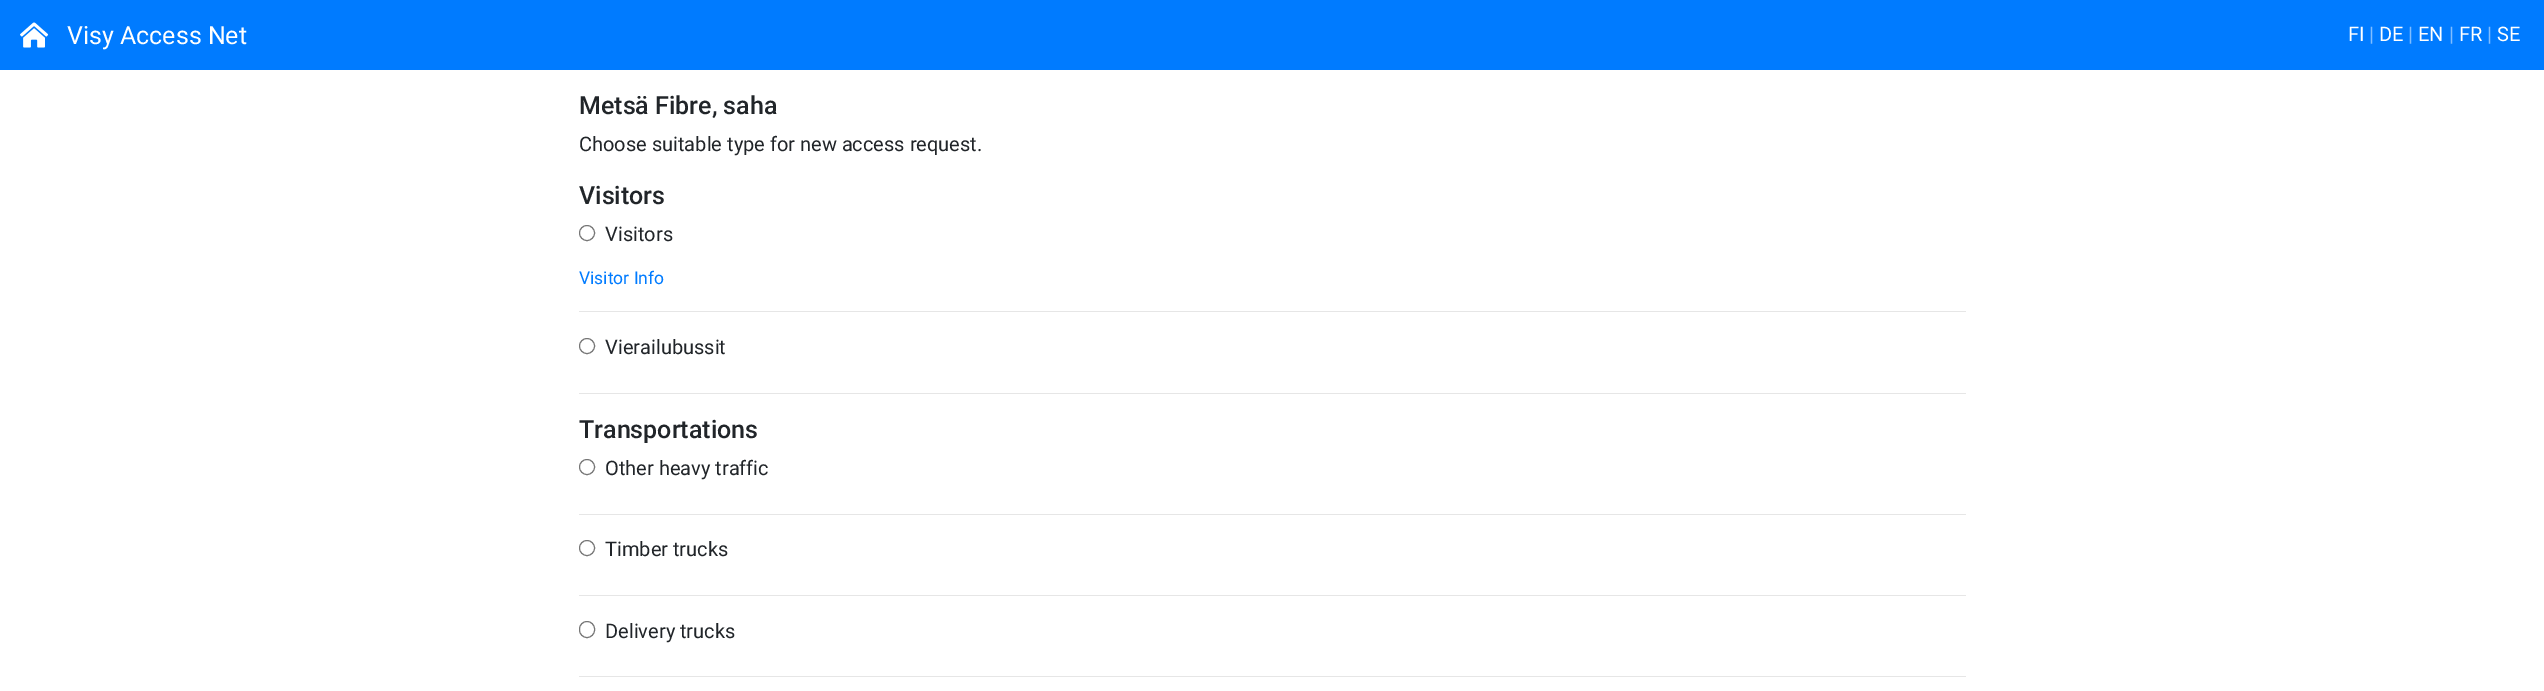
%!PS
<< /PageSize [2544 691] >> setpagedevice
/s/stroke load def
/C { dup -16 bitshift 255 div exch dup -8 bitshift 255 and 255 div exch 255 and 255 div setrgbcolor } def
/F { [ exch dup neg 0 0 3 -1 roll 0 0 ] selectfont } def
/T { moveto show } def
/R { rectfill } def
/O { newpath 0 360 arc closepath } def
/Q { 5 dict begin { /r /h /w /y /x } { exch def } forall
  x r add y moveto x w add y 2 copy h add r arct x w add y h add x 1 index r arct
  x y h add x y r arct x y 2 copy exch w add exch r arct closepath end } def
/I { 5 dict begin { /h /w /y /x /name } { exch def } forall
  gsave x y translate w h scale
  w h 8 [w 0 0 h 0 0] name (r) file false 3 colorimage grestore end } def
0 691 translate 1 -1 scale
4 setmiterlimit
16#FFFFFF C
0 0 2544 691 R
16#007BFF C
0 0 2544 70 R
(1.rgb) 20 22 29 26 I
/Roboto-Regular 25 F
16#FFFFFF C
(Visy Access Net) 67 44 T
/Roboto-Regular 20 F
(FI) 2348 41 T
16#80BDFF C
(|) 2369 41 T
16#FFFFFF C
(DE) 2379 41 T
16#80BDFF C
(|) 2408 41 T
16#FFFFFF C
(EN) 2418 41 T
16#80BDFF C
(|) 2449 41 T
16#FFFFFF C
(FR) 2459 41 T
16#80BDFF C
(|) 2487 41 T
16#FFFFFF C
(SE) 2497 41 T
/Roboto-Medium 25 F
16#212529 C
(Metsä Fibre, saha) 579 114 T
/Roboto-Regular 20 F
(Choose suitable type for new access request.) 579 151 T
/Roboto-Medium 25 F
(Visitors) 579 204 T
16#767676 C
587 233 7.5 O s
/Roboto-Regular 20 F
16#212529 C
(Visitors) 605 241 T
/Roboto-Regular 17.5 F
16#007BFF C
(Visitor Info) 579 284 T
16#E6E6E6 C
579 311 1387 1 R
16#767676 C
587 346 7.5 O s
/Roboto-Regular 20 F
16#212529 C
(Vierailubussit) 605 354 T
16#E6E6E6 C
579 393 1387 1 R
/Roboto-Medium 25 F
16#212529 C
(Transportations) 579 438 T
16#767676 C
587 467 7.5 O s
/Roboto-Regular 20 F
16#212529 C
(Other heavy traffic) 605 475 T
16#E6E6E6 C
579 514 1387 1 R
16#767676 C
587 548 7.5 O s
16#212529 C
(Timber trucks) 605 556 T
16#E6E6E6 C
579 595 1387 1 R
16#767676 C
579.5 621.5 15 16 7.5 Q s
16#212529 C
(Delivery trucks) 605 638 T
16#E6E6E6 C
579 676 1387 1 R
showpage
